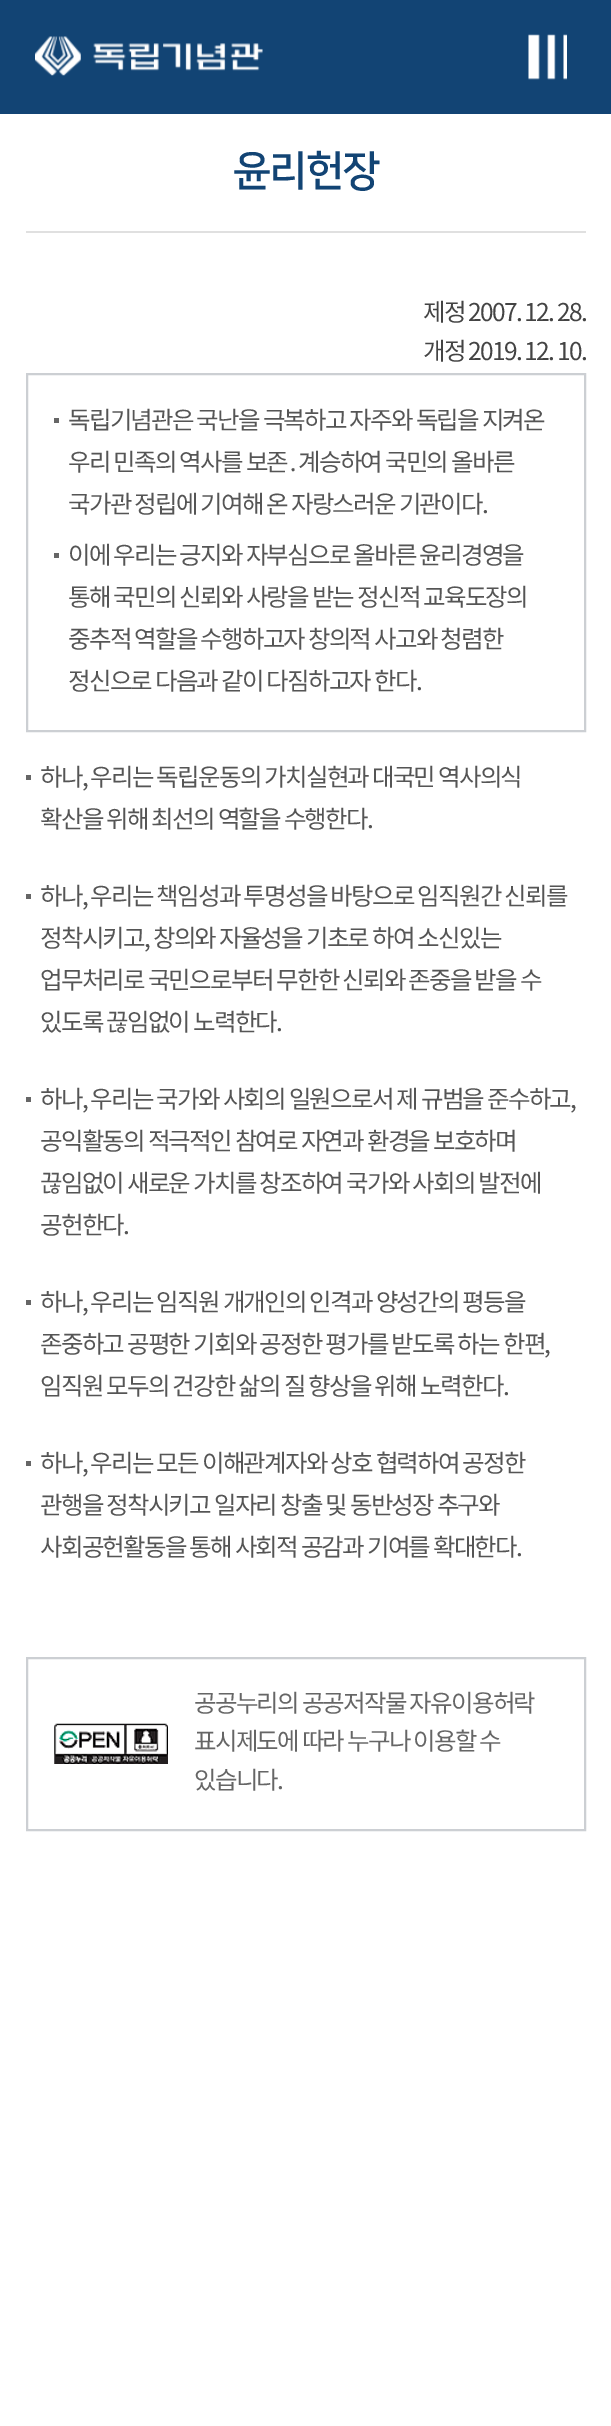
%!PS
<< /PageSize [611 2426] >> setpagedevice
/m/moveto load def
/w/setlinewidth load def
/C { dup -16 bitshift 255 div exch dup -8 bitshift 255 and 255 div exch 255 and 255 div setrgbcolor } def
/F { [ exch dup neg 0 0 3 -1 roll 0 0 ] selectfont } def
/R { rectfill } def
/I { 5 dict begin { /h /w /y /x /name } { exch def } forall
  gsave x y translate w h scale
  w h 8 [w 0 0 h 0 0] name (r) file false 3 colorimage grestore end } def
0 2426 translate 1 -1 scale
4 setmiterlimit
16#FFFFFF C
0 0 611 2426 R
16#124474 C
0 0 611 114 R
(1.rgb) 35 36 228 40 I
(2.rgb) 528 34 39 46 I
16#E0E0E0 C
26 231 560 2 R
/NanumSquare-Bold 42 F
16#124474 C
233 184 m -1.75 0 (윤리헌장) ashow
/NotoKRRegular-Regular 24.5 F
16#444444 C
423 321 m -1.75 0 (제정 2007. 12. 28.) ashow
423 360 m -1.75 0 (개정 2019. 12. 10.) ashow
16#CCCFD3 C
2 w
27 374 558 357 rectstroke
16#666666 C
54 418 5 5 R
16#555555 C
68 429 m -1.75 0 (독립기념관은 국난을 극복하고 자주와 독립을 지켜온) ashow
68 471 m -1.75 0 (우리 민족의 역사를 보존) ashow
/NotoSans-Regular 24.5 F
287 471 m -1.75 0 (․) ashow
/NotoKRRegular-Regular 24.5 F
298 471 m -1.75 0 (계승하여 국민의 올바른) ashow
68 513 m -1.75 0 (국가관 정립에 기여해 온 자랑스러운 기관이다.) ashow
16#666666 C
54 553 5 5 R
16#555555 C
68 564 m -1.75 0 (이에 우리는 긍지와 자부심으로 올바른 윤리경영을) ashow
68 606 m -1.75 0 (통해 국민의 신뢰와 사랑을 받는 정신적 교육도장의) ashow
68 648 m -1.75 0 (중추적 역할을 수행하고자 창의적 사고와 청렴한) ashow
68 690 m -1.75 0 (정신으로 다음과 같이 다짐하고자 한다.) ashow
16#666666 C
26 775 5 5 R
16#555555 C
40 786 m -1.75 0 (하나, 우리는 독립운동의 가치실현과 대국민 역사의식) ashow
40 828 m -1.75 0 (확산을 위해 최선의 역할을 수행한다.) ashow
16#666666 C
26 894 5 5 R
16#555555 C
40 905 m -1.75 0 (하나, 우리는 책임성과 투명성을 바탕으로 임직원간 신뢰를) ashow
40 947 m -1.75 0 (정착시키고, 창의와 자율성을 기초로 하여 소신있는) ashow
40 989 m -1.75 0 (업무처리로 국민으로부터 무한한 신뢰와 존중을 받을 수) ashow
40 1031 m -1.75 0 (있도록 끊임없이 노력한다.) ashow
16#666666 C
26 1097 5 5 R
16#555555 C
40 1108 m -1.75 0 (하나, 우리는 국가와 사회의 일원으로서 제 규범을 준수하고,) ashow
40 1150 m -1.75 0 (공익활동의 적극적인 참여로 자연과 환경을 보호하며) ashow
40 1192 m -1.75 0 (끊임없이 새로운 가치를 창조하여 국가와 사회의 발전에) ashow
40 1234 m -1.75 0 (공헌한다.) ashow
16#666666 C
26 1300 5 5 R
16#555555 C
40 1311 m -1.75 0 (하나, 우리는 임직원 개개인의 인격과 양성간의 평등을) ashow
40 1353 m -1.75 0 (존중하고 공평한 기회와 공정한 평가를 받도록 하는 한편,) ashow
40 1395 m -1.75 0 (임직원 모두의 건강한 삶의 질 향상을 위해 노력한다.) ashow
16#666666 C
26 1461 5 5 R
16#555555 C
40 1472 m -1.75 0 (하나, 우리는 모든 이해관계자와 상호 협력하여 공정한) ashow
40 1514 m -1.75 0 (관행을 정착시키고 일자리 창출 및 동반성장 추구와) ashow
40 1556 m -1.75 0 (사회공헌활동을 통해 사회적 공감과 기여를 확대한다.) ashow
16#CCCFD3 C
27 1658 558 172 rectstroke
(3.rgb) 54 1723 114 41 I
16#666666 C
194 1712 m -1.75 0 (공공누리의 공공저작물 자유이용허락) ashow
194 1750 m -1.75 0 (표시제도에 따라 누구나 이용할 수) ashow
194 1789 m -1.75 0 (있습니다.) ashow
showpage
